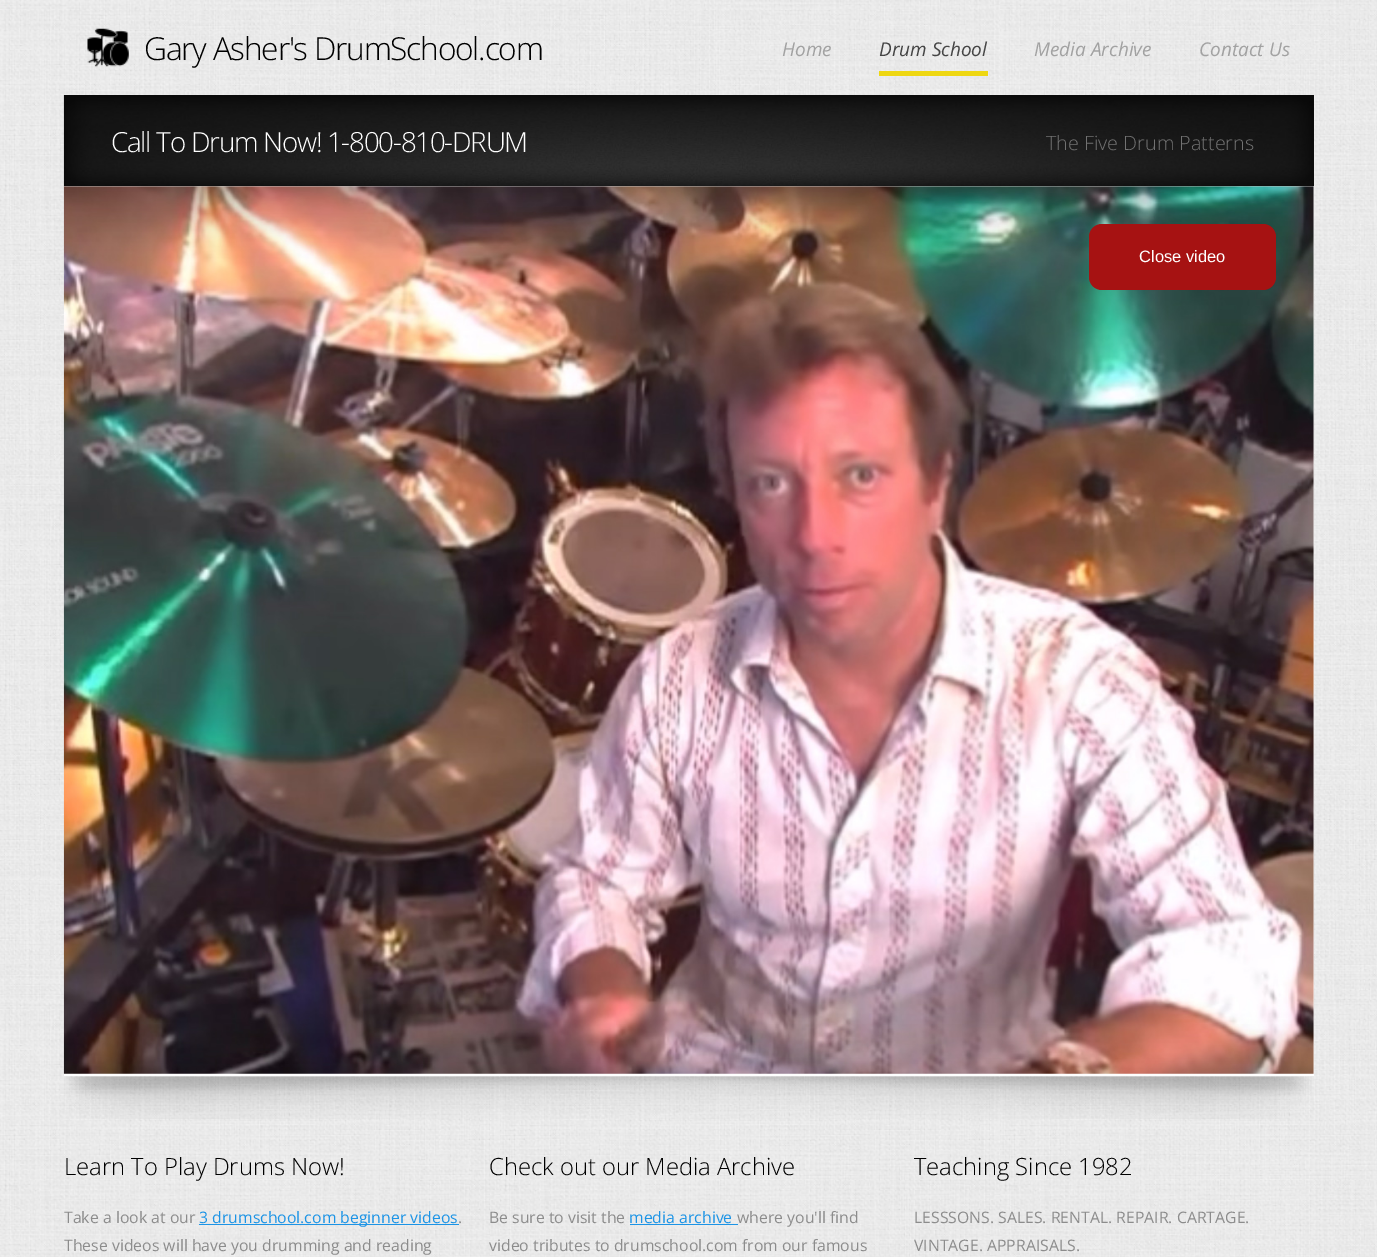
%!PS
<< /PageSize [1377 1257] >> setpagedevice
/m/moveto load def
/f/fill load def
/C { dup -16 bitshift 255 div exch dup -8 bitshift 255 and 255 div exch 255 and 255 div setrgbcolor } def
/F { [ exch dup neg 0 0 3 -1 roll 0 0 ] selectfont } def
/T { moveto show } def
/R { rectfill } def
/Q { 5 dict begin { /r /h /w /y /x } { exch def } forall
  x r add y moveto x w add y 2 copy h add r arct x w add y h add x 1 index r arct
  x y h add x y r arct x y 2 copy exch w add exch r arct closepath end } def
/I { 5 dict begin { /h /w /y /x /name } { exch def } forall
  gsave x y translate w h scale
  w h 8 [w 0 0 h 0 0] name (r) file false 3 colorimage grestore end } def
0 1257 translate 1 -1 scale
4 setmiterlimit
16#FFFFFF C
0 0 1377 1257 R
(1.rgb) 0 0 1377 1257 I
(2.rgb) 87 28 42 39 I
/OpenSans-Light 31.7 F
16#000000 C
144 60 m -1.25 0 (Gary Asher's DrumSchool.com) ashow
/OpenSans-Italic 19 F
16#A2A2A2 C
(Home) 782 56 T
16#EED712 C
879 71 109 5 R
16#454545 C
(Drum School) 879 56 T
16#A2A2A2 C
(Media Archive) 1034 56 T
(Contact Us) 1199 56 T
16#FFFFFF C
64 186 1250 890 R
16#101010 C
1313 95 1 91 R
(3.rgb) 63 95 1251 92 I
/OpenSans-Light 27.75 F
16#FFFFFF C
111 152 m -1.25 0 (Call To Drum Now! 1-800-810-DRUM) ashow
/OpenSans-Light 19.75 F
16#727272 C
(The Five Drum Patterns) 1046 150 T
(4.rgb) 63 186 1251 888 I
16#A61212 C
1089 224 187 66 13 Q f
/LiberationSans-Regular 16.5 F
16#FFFFFF C
(Close video) 1139 262 T
(5.rgb) 64 1076 1248 43 I
/OpenSans-Light 23.75 F
16#000000 C
(Learn To Play Drums Now!) 64 1175 T
/OpenSans-Regular 15.8 F
16#8C8C8C C
(Take a look at our) 64 1223 T
16#1C94E6 C
199 1224 260 1 R
(3 drumschool.com beginner videos) 199 1223 T
16#8C8C8C C
(.) 458 1223 T
(These videos will have you drumming and reading) 64 1251 T
/OpenSans-Light 23.75 F
16#000000 C
(Check out our Media Archive) 489 1175 T
/OpenSans-Regular 15.8 F
16#8C8C8C C
(Be sure to visit the) 489 1223 T
16#1C94E6 C
(media archive) 629 1223 T
630 1224 108 1 R
16#8C8C8C C
(where you'll find) 737 1223 T
(video tributes to drumschool.com from our famous) 489 1251 T
/OpenSans-Light 23.75 F
16#000000 C
(Teaching Since 1982) 914 1175 T
/OpenSans-Regular 15.8 F
16#8C8C8C C
(LESSSONS. SALES. RENTAL. REPAIR. CARTAGE.) 914 1223 T
(VINTAGE. APPRAISALS.) 914 1251 T
showpage
